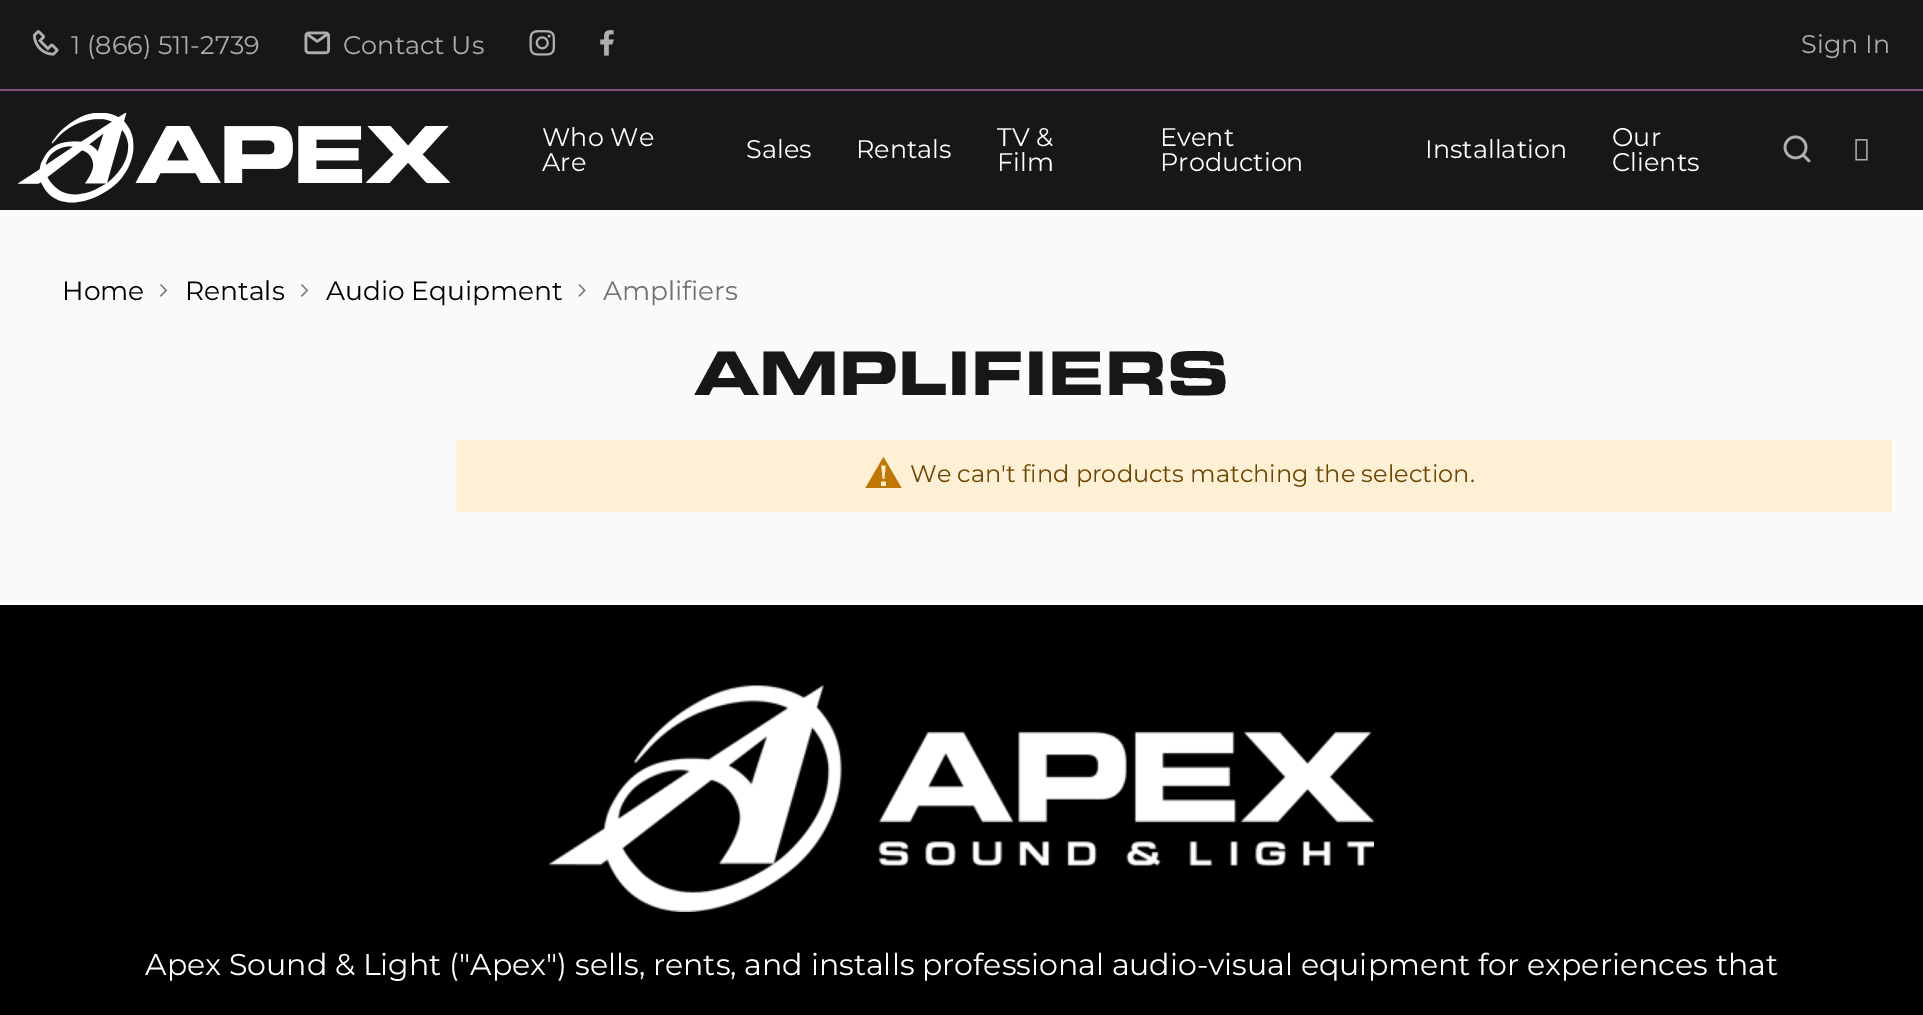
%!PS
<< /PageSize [1923 1015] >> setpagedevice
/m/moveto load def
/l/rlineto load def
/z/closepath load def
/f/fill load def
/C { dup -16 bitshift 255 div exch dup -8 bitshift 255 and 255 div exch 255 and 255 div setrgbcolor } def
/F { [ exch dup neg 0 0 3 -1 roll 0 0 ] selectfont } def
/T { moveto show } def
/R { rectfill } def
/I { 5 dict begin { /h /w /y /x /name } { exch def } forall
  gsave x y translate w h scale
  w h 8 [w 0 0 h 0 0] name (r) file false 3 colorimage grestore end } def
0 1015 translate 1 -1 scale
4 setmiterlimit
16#FAFAFA C
0 0 1923 1015 R
16#171717 C
0 0 1923 210 R
16#834C7C C
0 89 1923 2 R
(1.rgb) 33 30 26 26 I
/Montserrat-Regular 25.5 F
16#AEAEAE C
(1 \(866\) 511-2739) 71 54 T
(2.rgb) 304 31 26 24 I
(Contact Us) 343 54 T
(3.rgb) 529 30 26 26 I
(4.rgb) 600 30 14 26 I
(Sign In) 1801 53 T
(5.rgb) 18 113 432 90 I
16#FFFFFF C
(Who We) 542 146 T
(Are) 542 171 T
(Sales) 746 158 T
(Rentals) 856 158 T
(TV &) 997 146 T
(Film) 997 171 T
(Event) 1160 146 T
(Production) 1160 171 T
(Installation) 1425 158 T
(Our) 1612 146 T
(Clients) 1612 171 T
(6.rgb) 1783 135 28 28 I
(7.rgb) 1855 139 13 22 I
/Montserrat-Regular 26.5 F
16#000000 C
(Home) 62 300 T
(8.rgb) 159 284 9 13 I
(Rentals) 185 300 T
(8.rgb) 300 284 9 13 I
(Audio Equipment) 326 300 T
(9.rgb) 578 284 8 13 I
16#707070 C
(Amplifiers) 603 300 T
/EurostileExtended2-Bold 60 F
16#171717 C
(AMPLIFIERS) 694 395 T
16#FDF0D5 C
456 440 1436 72 R
16#C07600 C
883.5 457 m -18 31 l 36 0 l z 885.5 465.5 m 0 4.5 l -1 9 l -2 0 l -1 -9 l -.5 -4.5 l z 881 486 m 0 -4.5 l 5 0 l 0 4.5 l z f
/Montserrat-Regular 24 F
16#6F4400 C
(We can't find products matching the selection.) 910 482 T
16#000000 C
0 605 1923 410 R
16#FFFFFF C
0 602 1923 3 R
(10.rgb) 549 685 825 227 I
/Montserrat-Regular 30 F
(Apex Sound & Light \("Apex"\) sells, rents, and installs professional audio-visual equipment for experiences that) 145 975 T
showpage
